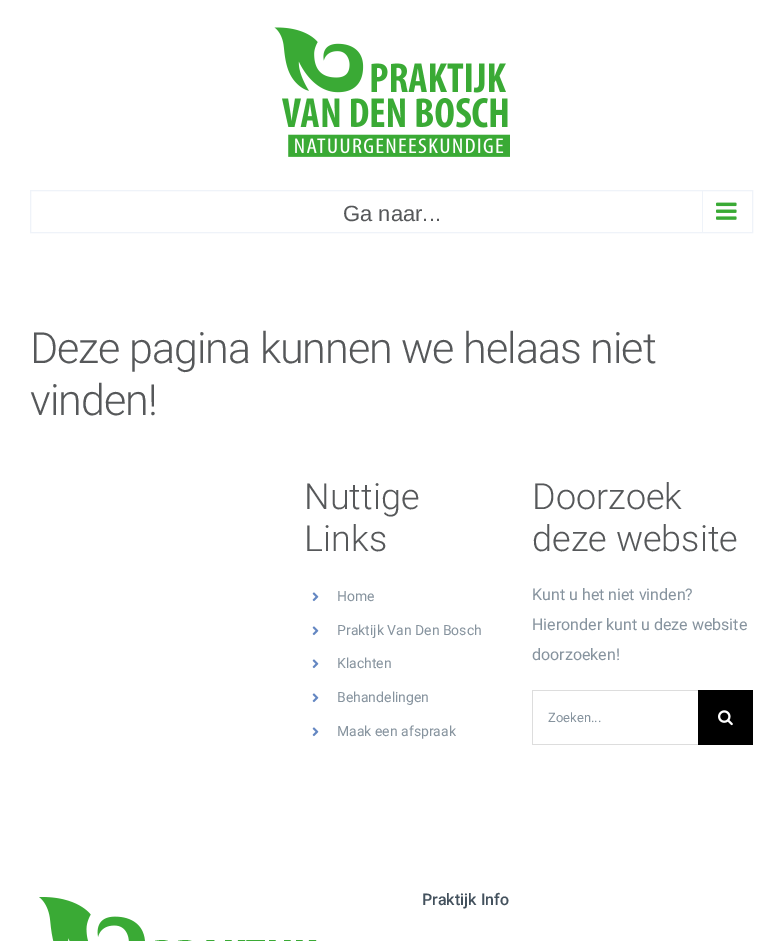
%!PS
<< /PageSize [783 941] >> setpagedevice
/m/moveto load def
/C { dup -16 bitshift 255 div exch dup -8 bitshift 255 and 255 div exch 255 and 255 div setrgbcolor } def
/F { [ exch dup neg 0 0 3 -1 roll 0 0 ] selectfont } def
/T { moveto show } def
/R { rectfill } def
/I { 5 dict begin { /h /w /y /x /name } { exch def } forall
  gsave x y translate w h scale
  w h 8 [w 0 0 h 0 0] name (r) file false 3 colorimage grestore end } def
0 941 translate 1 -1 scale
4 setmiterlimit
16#FFFFFF C
0 0 783 941 R
(1.rgb) 274 27 236 130 I
16#EFF3F9 C
30.5 190.5 722 42 rectstroke
/LiberationSans-Regular 22 F
16#56585A C
(Ga naar...) 343 221 T
16#EFF3F9 C
702 191 1 41 R
(2.rgb) 716 202 21 18 I
/Roboto-Light 43 F
16#56585A C
30 363 m -1 0 (Deze pagina kunnen we helaas niet) ashow
30 415 m -1 0 (vinden!) ashow
/Roboto-Light 36 F
(Nuttige) 304 509 T
(Links) 304 551 T
(3.rgb) 312 592 7 10 I
/Roboto-Regular 14 F
16#86939E C
(Home) 337 601 T
(3.rgb) 312 626 7 10 I
(Praktijk Van Den Bosch) 337 635 T
(3.rgb) 312 659 7 10 I
(Klachten) 337 668 T
(3.rgb) 312 693 7 10 I
(Behandelingen) 337 702 T
(3.rgb) 312 727 7 10 I
(Maak een afspraak) 337 736 T
/Roboto-Light 36 F
16#56585A C
(Doorzoek) 532 509 T
(deze website) 532 551 T
/Roboto-Regular 16 F
16#86939E C
(Kunt u het niet vinden?) 532 600 T
(Hieronder kunt u deze website) 532 630 T
(doorzoeken!) 532 660 T
16#DDDDDD C
532 690 166 1 R
532 744 166 1 R
532 690 1 55 R
/Roboto-Regular 13 F
16#86939E C
(Zoeken...) 548 722 T
16#000000 C
698 690 55 55 R
(4.rgb) 718 710 15 16 I
(5.rgb) 39 897 278 44 I
/Roboto-Medium 16 F
16#43515D C
(Praktijk Info) 422 905 T
showpage
